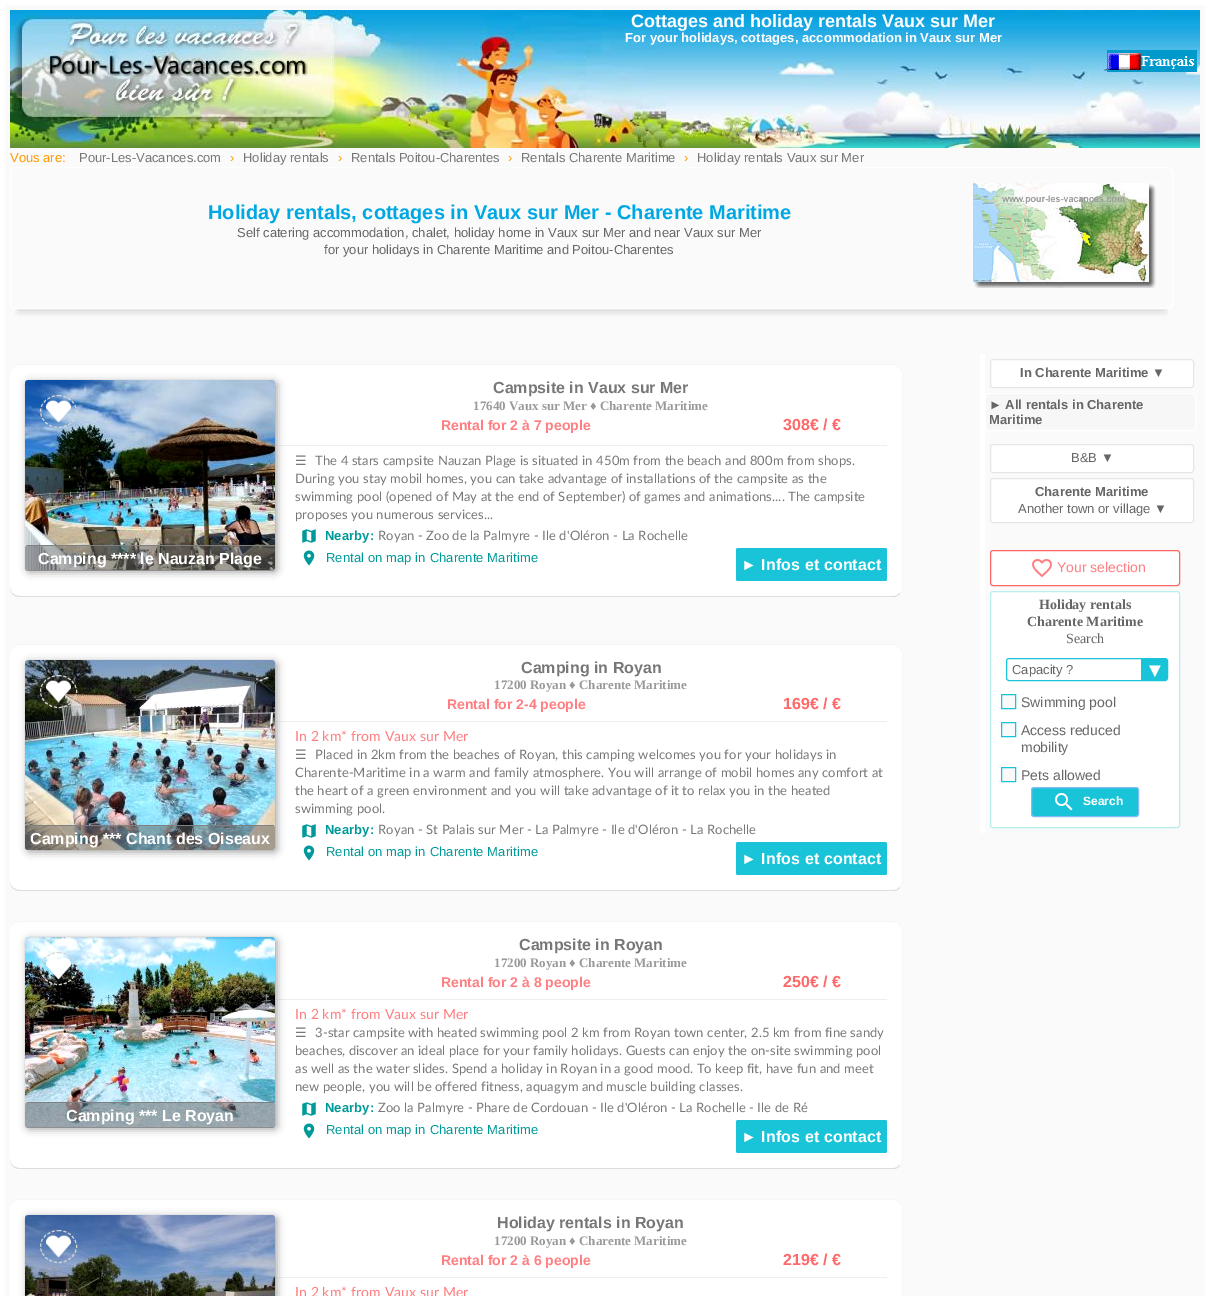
%!PS
<< /PageSize [1210 1296] /PageUsesTransparency true >> setpagedevice
/m/moveto load def
/l/rlineto load def
/c/rcurveto load def
/z/closepath load def
/f/fill load def
/s/stroke load def
/q/gsave load def
/Q_/grestore load def
/w/setlinewidth load def
/C { dup -16 bitshift 255 div exch dup -8 bitshift 255 and 255 div exch 255 and 255 div setrgbcolor } def
/F { [ exch dup neg 0 0 3 -1 roll 0 0 ] selectfont } def
/T { moveto show } def
/R { rectfill } def
/A { dup .setfillconstantalpha .setstrokeconstantalpha } def
/Q { 5 dict begin { /r /h /w /y /x } { exch def } forall
  x r add y moveto x w add y 2 copy h add r arct x w add y h add x 1 index r arct
  x y h add x y r arct x y 2 copy exch w add exch r arct closepath end } def
/S { 12 dict begin { /a /b /q /h /w /y /x } { exch def } forall gsave /was 0 def
  9 -2 -9 { dup b mul 4 div /e exch def 1 sub .425 mul 2.718 exch exp 1 add a .99 .min exch div /now exch def
    1 1 now sub 1 was sub div sub A /was now def
    w h .min e 2 mul add 0 gt { x e sub y e sub w e 2 mul add h e 2 mul add
      q e add b .6 mul add w h .min 2 div e add .min 0 .max Q fill } if } for grestore end } def
/I { 5 dict begin { /h /w /y /x /name } { exch def } forall
  gsave x y translate w h scale
  w h 8 [w 0 0 h 0 0] name (r) file false 3 colorimage grestore end } def
0 .pushpdf14devicefilter
0 1296 translate 1 -1 scale
4 setmiterlimit
16#FFFFFF C
0 0 1210 1296 R
16#FAFAFA C
2.5 2.5 1205 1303 4.5 Q q f Q_
16#FFFFFF C
5 w
s
(1.rgb) 10 10 1190 138 I
/LiberationSans-Bold 18 F
(Cottages and holiday rentals Vaux sur Mer) 631 27 T
/LiberationSans-Bold 13 F
(For your holidays, cottages, accommodation in Vaux sur Mer) 625 42 T
(2.rgb) 1107 50 90 22 I
/LiberationSans-Regular 13 F
16#FF9900 C
(Vous are:) 10 162 T
16#777777 C
(Pour-Les-Vacances.com) 79 162 T
16#FF9900 C
(›) 230 162 T
16#777777 C
(Holiday rentals) 243 162 T
16#FF9900 C
(›) 338 162 T
16#777777 C
(Rentals Poitou-Charentes) 351 162 T
16#FF9900 C
(›) 508 162 T
16#777777 C
(Rentals Charente Maritime) 521 162 T
16#FF9900 C
(›) 684 162 T
16#777777 C
(Holiday rentals Vaux sur Mer) 697 162 T
q
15 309 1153 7 rectclip
16#000000 C
19 186 1145 124 0 5 .2 S
Q_
16#FFFFFF C
1 w
10.5 167.5 1162 141 4.5 Q s
/LiberationSans-Bold 20 F
16#00A8E3 C
(Holiday rentals, cottages in Vaux sur Mer - Charente Maritime) 208 219 T
(3.rgb) 973 183 184 105 I
/LiberationSans-Regular 13 F
16#666666 C
(Self catering accommodation, chalet, holiday home in Vaux sur Mer and near Vaux sur Mer) 237 237 T
(for your holidays in Charente Maritime and Poitou-Charentes) 324 254 T
16#FFFFFF C
10 364 893 233 10 Q f
16#FAF5F5 C
20 364 m -6 0 -10 4 -10 10 c 0 -5 4 -9 10 -9 c 873 0 l 3 0 5 1 6 3 c 1 -1 l -2 -2 -4 -3 -7 -3 c z f
899 593 m 2 -1 3 -3 3 -6 c 0 -213 l 0 -2 -1 -5 -3 -6 c 1 -1 l 2 1 3 4 3 7 c 0 213 l 0 3 -1 5 -3 7 c z f
16#DDDDDD C
20 597 m 873 0 l 3 0 5 -1 7 -3 c -1 -1 l -1 2 -3 3 -6 3 c -873 0 l -6 0 -10 -4 -10 -9 c 0 6 4 10 10 10 c z f
/LiberationSans-Bold 16 F
16#777777 C
(Campsite in Vaux sur Mer) 493 393 T
/LiberationSerif-Bold 13 F
16#999999 C
(17640 Vaux sur Mer ♦ Charente Maritime) 473 410 T
/LiberationSans-Bold 14 F
16#FF7E82 C
(Rental for 2 à 7 people) 441 430 T
/LiberationSans-Bold 16 F
16#FF6868 C
(308€ / €) 783 430 T
16#EEEEEE C
275 445 612 1 R
16#9E9E9E C
27 382 250 190 3 4 1 S
(4.rgb) 25 380 250 190 I
(5.rgb) 46 400 25 23 I
16#D4D4D4 C
[3 2] 0 setdash
58.5 395.5 m 10 0 18 7 18 16 c 0 9 -8 16 -18 16 c -10 0 -18 -7 -18 -16 c 0 -9 8 -16 18 -16 c z s
0.5 A
16#616161 C
25 545 250 26 3 Q f
1 A
16#808080 C
27 545 247 1 R
16#FFFFFF C
(Camping **** le Nauzan Plage) 38 564 T
/DejaVuSans-Regular 13 F
16#777777 C
295 465 m .1 0 (☰) ashow
/Lato-Regular 13 F
315 465 m .1 0 (The 4 stars campsite Nauzan Plage is situated in 450m from the beach and 800m from shops.) ashow
295 483 m .1 0 (During you stay mobil homes, you can take advantage of installations of the campsite as the) ashow
295 501 m .1 0 (swimming pool \(opened of May at the end of September\) of games and animations.... The campsite) ashow
295 519 m .1 0 (proposes you numerous services...) ashow
(6.rgb) 302 529 14 14 I
/LiberationSans-Bold 13 F
16#009999 C
325 540 m .1 0 (Nearby:) ashow
/Lato-Regular 13 F
16#777777 C
378 540 m .1 0 (Royan - Zoo de la Palmyre - Ile d'Oléron - La Rochelle) ashow
(7.rgb) 303 550 12 16 I
/LiberationSans-Regular 13 F
16#009999 C
326 562 m .1 0 (Rental on map in Charente Maritime) ashow
16#19C4D8 C
736 548 151 33 2 Q f
/LiberationSans-Bold 16 F
16#FFFFFF C
741 570 m .1 0 (► Infos et contact) ashow
10 644 893 247 10 Q f
16#FAF5F5 C
20 644 m -6 0 -10 4 -10 10 c 0 -5 4 -9 10 -9 c 873 0 l 3 0 5 1 6 3 c 1 -1 l -2 -2 -4 -3 -7 -3 c z f
899 887 m 2 -1 3 -3 3 -6 c 0 -227 l 0 -2 -1 -5 -3 -6 c 1 -1 l 2 1 3 4 3 7 c 0 227 l 0 3 -1 5 -3 7 c z f
16#DDDDDD C
20 891 m 873 0 l 3 0 5 -1 7 -3 c -1 -1 l -1 2 -3 3 -6 3 c -873 0 l -6 0 -10 -4 -10 -9 c 0 6 4 10 10 10 c z f
16#777777 C
(Camping in Royan) 521 673 T
/LiberationSerif-Bold 13 F
16#999999 C
(17200 Royan ♦ Charente Maritime) 494 689 T
/LiberationSans-Bold 14 F
16#FF7E82 C
(Rental for 2-4 people) 447 709 T
/LiberationSans-Bold 16 F
16#FF6868 C
(169€ / €) 783 709 T
16#EEEEEE C
275 721 612 1 R
16#9E9E9E C
27 662 250 190 3 4 1 S
(8.rgb) 25 660 250 190 I
(9.rgb) 46 680 25 23 I
16#D4D4D4 C
58.5 675.5 m 10 0 18 7 18 16 c 0 9 -8 16 -18 16 c -10 0 -18 -7 -18 -16 c 0 -9 8 -16 18 -16 c z s
0.5 A
16#616161 C
25 825 250 25 3 Q f
1 A
16#808080 C
27 825 247 1 R
16#FFFFFF C
(Camping *** Chant des Oiseaux) 30 844 T
/Lato-Regular 14 F
16#FF7E82 C
295 741 m .1 0 (In 2 km* from Vaux sur Mer) ashow
/DejaVuSans-Regular 13 F
16#777777 C
295 759 m .1 0 (☰) ashow
/Lato-Regular 13 F
315 759 m .1 0 (Placed in 2km from the beaches of Royan, this camping welcomes you for your holidays in) ashow
295 777 m .1 0 (Charente-Maritime in a warm and family atmosphere. You will arrange of mobil homes any comfort at) ashow
295 795 m .1 0 (the heart of a green environment and you will take advantage of it to relax you in the heated) ashow
295 813 m .1 0 (swimming pool.) ashow
(6.rgb) 302 824 14 14 I
/LiberationSans-Bold 13 F
16#009999 C
325 834 m .1 0 (Nearby:) ashow
/Lato-Regular 13 F
16#777777 C
378 834 m .1 0 (Royan - St Palais sur Mer - La Palmyre - Ile d'Oléron - La Rochelle) ashow
(7.rgb) 303 845 12 16 I
/LiberationSans-Regular 13 F
16#009999 C
326 856 m .1 0 (Rental on map in Charente Maritime) ashow
16#19C4D8 C
736 842 151 33 2 Q f
/LiberationSans-Bold 16 F
16#FFFFFF C
741 864 m .1 0 (► Infos et contact) ashow
10 921 893 248 10 Q f
16#FAF5F5 C
20 921 m -6 0 -10 4 -10 10 c 0 -5 4 -9 10 -9 c 873 0 l 3 0 5 1 6 3 c 1 -1 l -2 -2 -4 -3 -7 -3 c z f
899 1165 m 2 -1 3 -3 3 -6 c 0 -228 l 0 -3 -1 -5 -3 -6 c 1 -1 l 2 2 3 4 3 7 c 0 228 l 0 3 -1 5 -3 7 c z f
16#DDDDDD C
20 1169 m 873 0 l 3 0 5 -1 7 -3 c -1 -1 l -1 2 -3 3 -6 3 c -873 0 l -6 0 -10 -4 -10 -9 c 0 6 4 10 10 10 c z f
16#777777 C
(Campsite in Royan) 519 950 T
/LiberationSerif-Bold 13 F
16#999999 C
(17200 Royan ♦ Charente Maritime) 494 967 T
/LiberationSans-Bold 14 F
16#FF7E82 C
(Rental for 2 à 8 people) 441 987 T
/LiberationSans-Bold 16 F
16#FF6868 C
(250€ / €) 783 987 T
16#EEEEEE C
275 999 612 1 R
16#9E9E9E C
27 939 250 190 3 4 1 S
(10.rgb) 25 937 250 190 I
(11.rgb) 46 957 25 23 I
16#D4D4D4 C
58.5 952.5 m 10 0 18 7 18 16 c 0 9 -8 16 -18 16 c -10 0 -18 -7 -18 -16 c 0 -9 8 -16 18 -16 c z s
0.5 A
16#616161 C
25 1102 250 26 3 Q f
1 A
16#808080 C
27 1102 247 1 R
16#FFFFFF C
(Camping *** Le Royan) 66 1121 T
/Lato-Regular 14 F
16#FF7E82 C
295 1019 m .1 0 (In 2 km* from Vaux sur Mer) ashow
/DejaVuSans-Regular 13 F
16#777777 C
295 1037 m .1 0 (☰) ashow
/Lato-Regular 13 F
315 1037 m .1 0 (3-star campsite with heated swimming pool 2 km from Royan town center, 2.5 km from fine sandy) ashow
295 1055 m .1 0 (beaches, discover an ideal place for your family holidays. Guests can enjoy the on-site swimming pool) ashow
295 1073 m .1 0 (as well as the water slides. Spend a holiday in Royan in a good mood. To keep fit, have fun and meet) ashow
295 1091 m .1 0 (new people, you will be offered fitness, aquagym and muscle building classes.) ashow
(6.rgb) 302 1102 14 14 I
/LiberationSans-Bold 13 F
16#009999 C
325 1112 m .1 0 (Nearby:) ashow
/Lato-Regular 13 F
16#777777 C
378 1112 m .1 0 (Zoo la Palmyre - Phare de Cordouan - Ile d'Oléron - La Rochelle - Ile de Ré) ashow
(7.rgb) 303 1123 12 16 I
/LiberationSans-Regular 13 F
16#009999 C
326 1134 m .1 0 (Rental on map in Charente Maritime) ashow
16#19C4D8 C
736 1120 151 33 2 Q f
/LiberationSans-Bold 16 F
16#FFFFFF C
741 1142 m .1 0 (► Infos et contact) ashow
10 1199 893 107 10 Q f
16#FAF5F5 C
20 1199 m -6 0 -10 4 -10 10 c 0 -5 4 -9 10 -9 c 873 0 l 3 0 5 1 6 3 c 1 -1 l -2 -2 -4 -3 -7 -3 c z f
899 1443 m 2 -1 3 -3 3 -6 c 0 -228 l 0 -3 -1 -5 -3 -6 c 1 -1 l 2 2 3 4 3 7 c 0 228 l 0 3 -1 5 -3 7 c z f
16#EEEEEE C
275 1277 612 1 R
16#9E9E9E C
27 1217 250 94 3 4 1 S
(12.rgb) 25 1215 250 81 I
(13.rgb) 46 1235 25 23 I
16#D4D4D4 C
58.5 1230.5 m 10 0 18 7 18 16 c 0 9 -8 16 -18 16 c -10 0 -18 -7 -18 -16 c 0 -9 8 -16 18 -16 c z s
16#777777 C
(Holiday rentals in Royan) 497 1228 T
/LiberationSerif-Bold 13 F
16#999999 C
(17200 Royan ♦ Charente Maritime) 494 1245 T
/LiberationSans-Bold 14 F
16#FF7E82 C
(Rental for 2 à 6 people) 441 1265 T
/LiberationSans-Bold 16 F
16#FF6868 C
(219€ / €) 783 1265 T
/Lato-Regular 14 F
16#FF7E82 C
295 1297 m .1 0 (In 2 km* from Vaux sur Mer) ashow
16#FFFFFF C
980 354 5 479 R
990.5 359.5 203 28 2.5 Q q f Q_
16#E6E6E6 C
[] 0 setdash
s
/LiberationSans-Bold 13 F
16#666666 C
(In Charente Maritime ▼) 1020 377 T
16#FFFFFF C
985.5 393.5 210 37 rectstroke
16#F7F7F7 C
986 394 209 36 5 Q f
16#666666 C
(► All rentals in Charente) 989 409 T
(Maritime) 989 424 T
16#FFFFFF C
990.5 444.5 203 28 2.5 Q q f Q_
16#E6E6E6 C
s
/LiberationSans-Regular 13 F
16#666666 C
(B&B ▼) 1071 462 T
16#FFFFFF C
990.5 478.5 203 44 2.5 Q q f Q_
16#E6E6E6 C
s
/LiberationSans-Bold 13 F
16#666666 C
(Charente Maritime) 1035 496 T
/LiberationSans-Regular 13 F
(Another town or village ▼) 1018 513 T
16#FFFFFF C
990.5 550.5 189 35 2.5 Q q f Q_
16#FF6666 C
s
(14.rgb) 1032 559 20 19 I
/LiberationSans-Regular 14 F
16#FF7E82 C
(Your selection) 1057 572 T
16#FFFFFF C
990.5 591.5 189 236 2.5 Q q f Q_
16#B6EDED C
s
/LiberationSerif-Bold 14 F
16#666666 C
(Holiday rentals) 1039 609 T
(Charente Maritime) 1027 626 T
/LiberationSerif-Regular 14 F
(Search) 1066 643 T
16#19C4D8 C
1006.5 658.5 161 22 2.5 Q s
/LiberationSans-Regular 13 F
16#666666 C
(Capacity ?) 1012 674 T
16#19C4D8 C
1141 659 26 21 R
/LiberationSans-Bold 20 F
16#FFFFFF C
(▼) 1145 677 T
16#F9F9F9 C
1001.5 694.5 m 14 0 l 0 14 l -14 0 l z q f Q_
16#19C4D8 C
s
/LiberationSans-Regular 14 F
16#666666 C
(Swimming pool) 1021 707 T
16#F9F9F9 C
1001.5 722.5 m 14 0 l 0 14 l -14 0 l z q f Q_
16#19C4D8 C
s
16#666666 C
(Access reduced) 1021 735 T
(mobility) 1021 752 T
16#F9F9F9 C
1001.5 767.5 m 14 0 l 0 14 l -14 0 l z q f Q_
16#19C4D8 C
s
16#666666 C
(Pets allowed) 1021 780 T
16#19C4D8 C
1031.5 787.5 107 29 2.5 Q q f Q_
16#84BBF3 C
s
(15.rgb) 1055 793 18 18 I
/LiberationSans-Bold 12 F
16#FFFFFF C
(Search) 1083 805 T
.poppdf14devicefilter showpage
